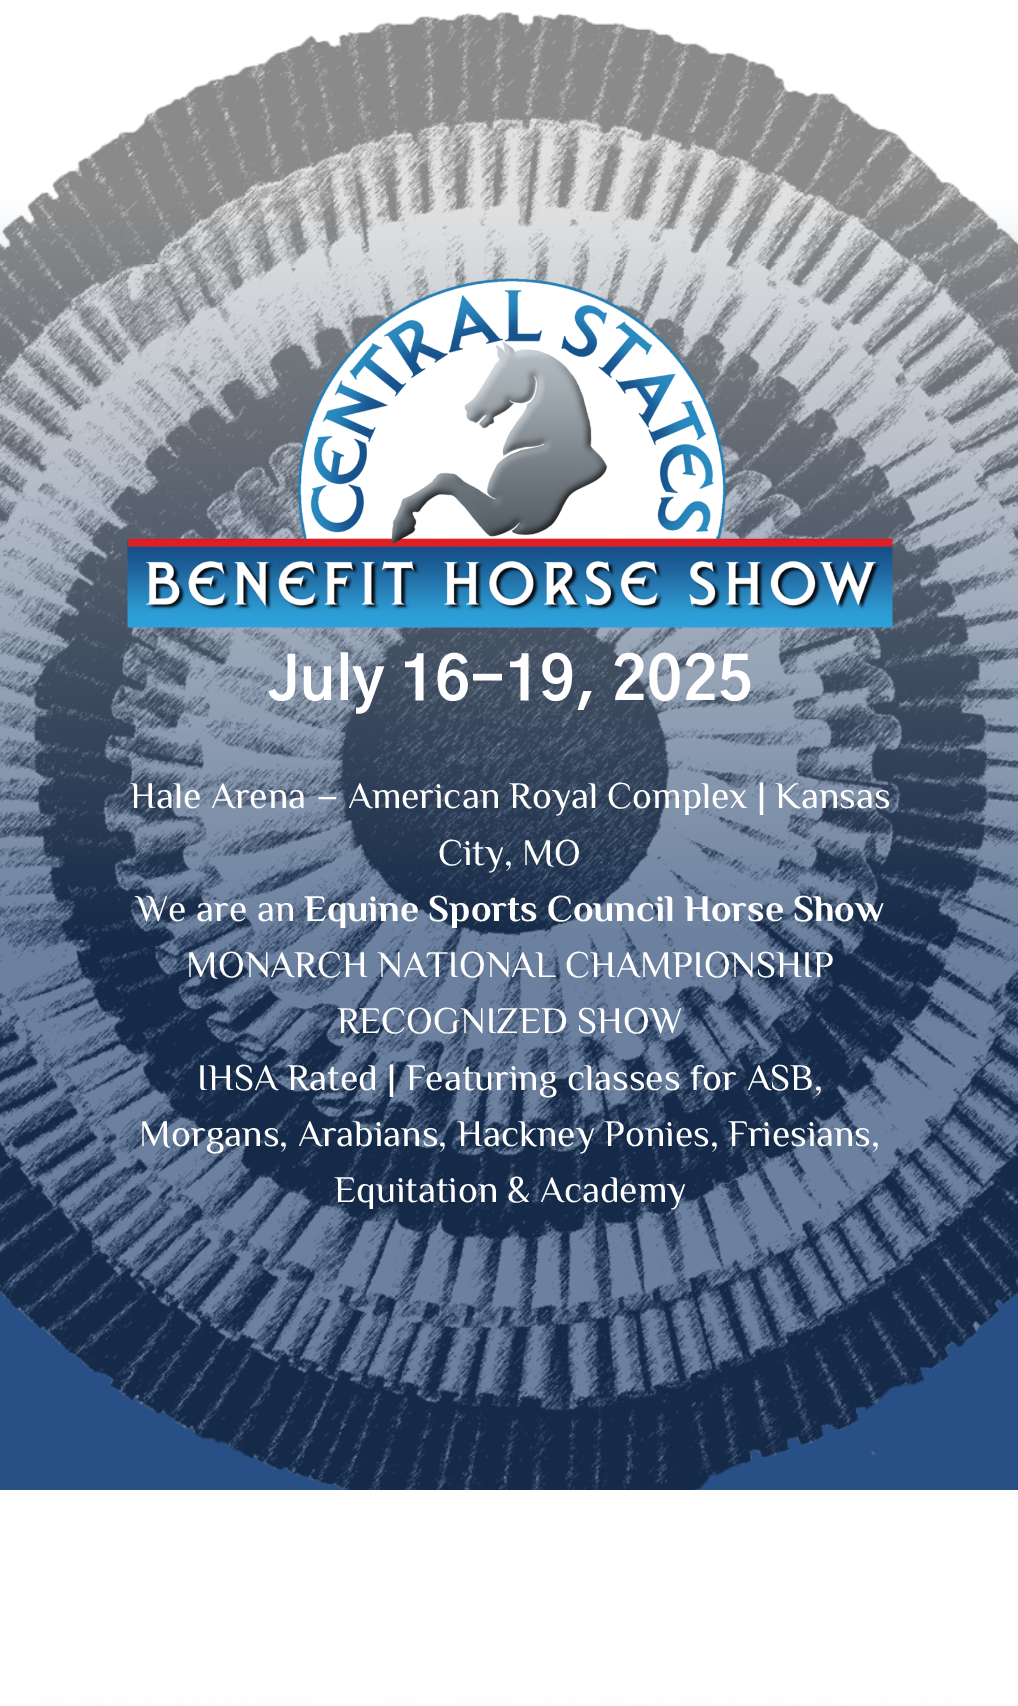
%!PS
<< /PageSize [1018 1706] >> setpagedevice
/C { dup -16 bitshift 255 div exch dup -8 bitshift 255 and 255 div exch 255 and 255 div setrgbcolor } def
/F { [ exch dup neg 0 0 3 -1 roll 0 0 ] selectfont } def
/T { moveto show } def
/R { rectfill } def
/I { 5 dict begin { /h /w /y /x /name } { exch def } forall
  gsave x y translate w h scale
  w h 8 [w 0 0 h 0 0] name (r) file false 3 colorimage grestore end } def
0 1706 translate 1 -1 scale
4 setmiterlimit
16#FFFFFF C
0 0 1018 1706 R
(1.rgb) 0 12 1018 1478 I
(2.rgb) 127 278 766 350 I
/GothicA1-Bold 60 F
(July 16-19, 2025) 268 700 T
/Philosopher-Regular 37.5 F
(Hale Arena – American Royal Complex | Kansas) 130 808 T
(City, MO) 438 865 T
(We are an) 136 921 T
/Philosopher-Bold 37.5 F
(Equine Sports Council Horse Show) 304 921 T
/Philosopher-Regular 37.5 F
(MONARCH NATIONAL CHAMPIONSHIP) 186 977 T
(RECOGNIZED SHOW) 337 1033 T
(IHSA Rated | Featuring classes for ASB,) 197 1090 T
(Morgans, Arabians, Hackney Ponies, Friesians,) 139 1146 T
(Equitation & Academy) 334 1202 T
(3.rgb) 0 1490 1018 216 I
showpage
